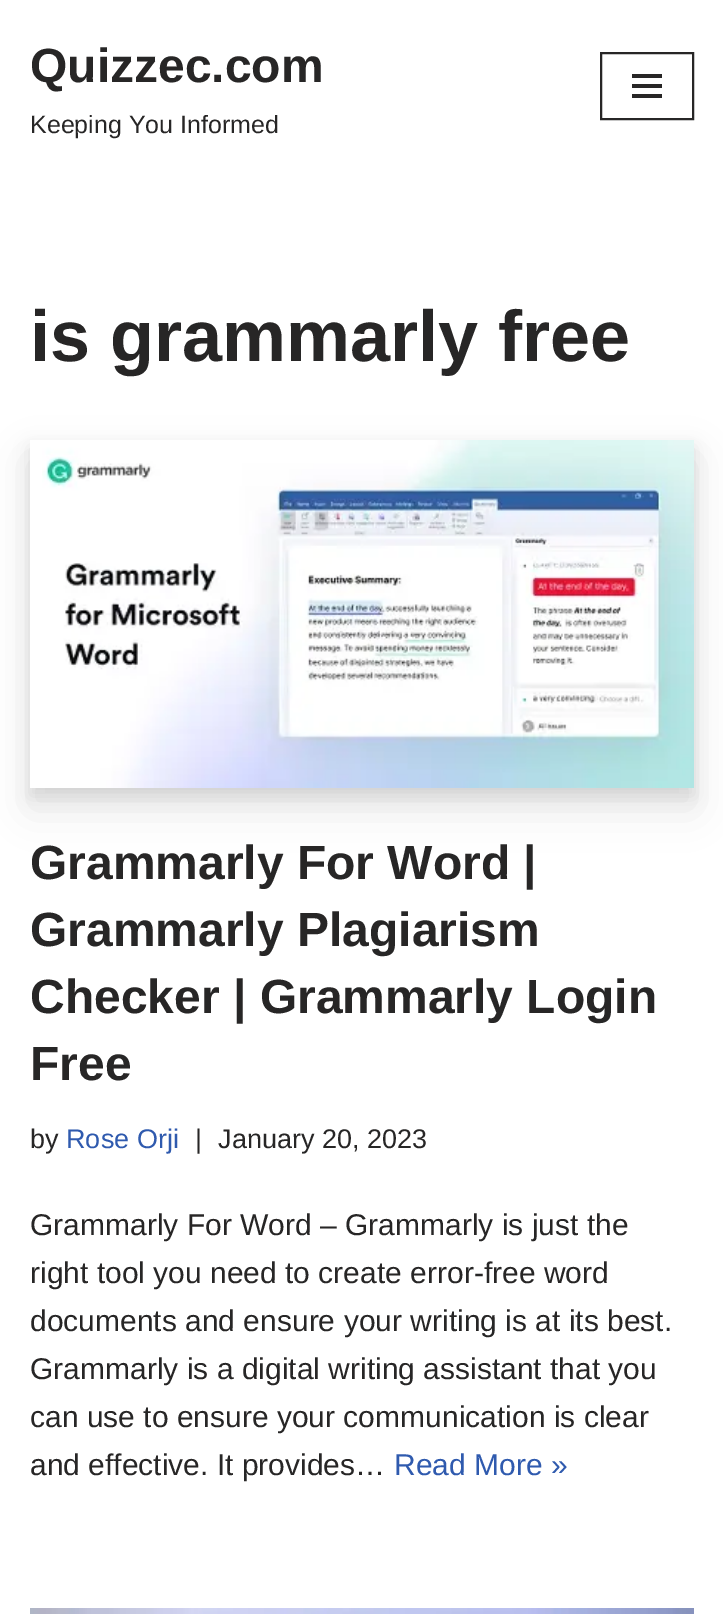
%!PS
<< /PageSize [723 1614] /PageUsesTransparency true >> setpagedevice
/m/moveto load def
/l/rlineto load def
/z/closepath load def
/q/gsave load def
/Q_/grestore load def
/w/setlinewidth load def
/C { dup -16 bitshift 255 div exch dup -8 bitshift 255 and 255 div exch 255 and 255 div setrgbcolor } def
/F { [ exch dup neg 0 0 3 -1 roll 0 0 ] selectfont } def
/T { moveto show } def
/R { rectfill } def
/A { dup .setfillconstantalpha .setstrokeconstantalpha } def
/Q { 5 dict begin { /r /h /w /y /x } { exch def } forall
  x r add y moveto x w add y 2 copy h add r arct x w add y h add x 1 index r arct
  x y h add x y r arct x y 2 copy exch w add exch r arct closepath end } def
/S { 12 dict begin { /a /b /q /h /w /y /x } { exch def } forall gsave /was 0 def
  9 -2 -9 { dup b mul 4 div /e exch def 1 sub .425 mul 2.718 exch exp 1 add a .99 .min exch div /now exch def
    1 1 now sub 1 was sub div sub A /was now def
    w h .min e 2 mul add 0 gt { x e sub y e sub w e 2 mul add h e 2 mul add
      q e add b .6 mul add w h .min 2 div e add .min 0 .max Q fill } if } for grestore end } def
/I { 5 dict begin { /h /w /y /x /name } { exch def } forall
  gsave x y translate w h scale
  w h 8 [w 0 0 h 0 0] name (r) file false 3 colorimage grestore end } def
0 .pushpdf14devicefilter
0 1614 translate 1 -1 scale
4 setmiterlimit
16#FFFFFF C
0 0 723 1614 R
/LiberationSans-Bold 48 F
16#272626 C
(Quizzec.com) 30 82 T
/LiberationSans-Regular 25 F
(Keeping You Informed) 30 133 T
2 w
601 53 92 66 rectstroke
632 74 30 4 R
632 84 30 4 R
632 94 30 4 R
/LiberationSans-Bold 72 F
(is grammarly free) 30 361 T
q
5 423 m 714 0 l 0 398 l -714 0 l z 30 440 m 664 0 l 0 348 l -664 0 l z eoclip newpath
16#000000 C
30 448 664 348 0 8 .1 S
Q_
q
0 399 m 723 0 l 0 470 l -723 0 l z 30 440 m 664 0 l 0 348 l -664 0 l z eoclip newpath
16#000000 C
30 460 664 348 0 20 .1 S
Q_
(1.rgb) 42 440 652 348 I
/LiberationSans-Bold 48 F
(Grammarly For Word |) 30 879 T
(Grammarly Plagiarism) 30 946 T
(Checker | Grammarly Login) 30 1013 T
(Free) 30 1080 T
/LiberationSans-Regular 27 F
(by) 30 1148 T
16#2F5AAE C
(Rose Orji) 66 1148 T
16#272626 C
(|) 195 1148 T
(January 20, 2023) 218 1148 T
/LiberationSans-Regular 30 F
(Grammarly For Word – Grammarly is just the) 30 1235 T
(right tool you need to create error-free word) 30 1283 T
(documents and ensure your writing is at its best.) 30 1331 T
(Grammarly is a digital writing assistant that you) 30 1379 T
(can use to ensure your communication is clear) 30 1427 T
(and effective. It provides…) 30 1475 T
16#2F5AAE C
(Read More ») 394 1475 T
(2.rgb) 30 1608 664 6 I
.poppdf14devicefilter showpage
